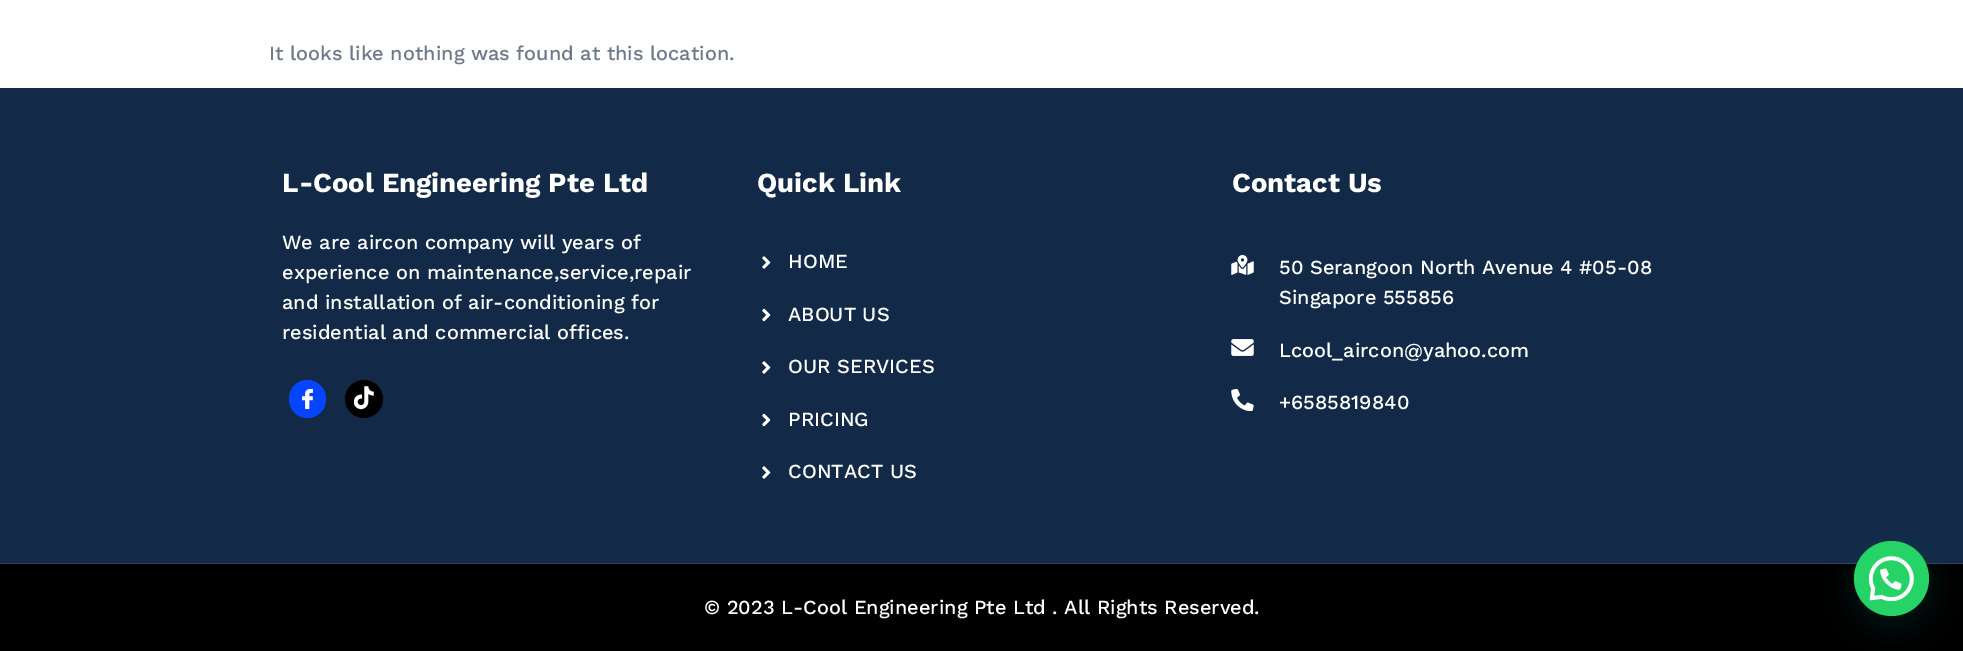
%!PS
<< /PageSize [1963 651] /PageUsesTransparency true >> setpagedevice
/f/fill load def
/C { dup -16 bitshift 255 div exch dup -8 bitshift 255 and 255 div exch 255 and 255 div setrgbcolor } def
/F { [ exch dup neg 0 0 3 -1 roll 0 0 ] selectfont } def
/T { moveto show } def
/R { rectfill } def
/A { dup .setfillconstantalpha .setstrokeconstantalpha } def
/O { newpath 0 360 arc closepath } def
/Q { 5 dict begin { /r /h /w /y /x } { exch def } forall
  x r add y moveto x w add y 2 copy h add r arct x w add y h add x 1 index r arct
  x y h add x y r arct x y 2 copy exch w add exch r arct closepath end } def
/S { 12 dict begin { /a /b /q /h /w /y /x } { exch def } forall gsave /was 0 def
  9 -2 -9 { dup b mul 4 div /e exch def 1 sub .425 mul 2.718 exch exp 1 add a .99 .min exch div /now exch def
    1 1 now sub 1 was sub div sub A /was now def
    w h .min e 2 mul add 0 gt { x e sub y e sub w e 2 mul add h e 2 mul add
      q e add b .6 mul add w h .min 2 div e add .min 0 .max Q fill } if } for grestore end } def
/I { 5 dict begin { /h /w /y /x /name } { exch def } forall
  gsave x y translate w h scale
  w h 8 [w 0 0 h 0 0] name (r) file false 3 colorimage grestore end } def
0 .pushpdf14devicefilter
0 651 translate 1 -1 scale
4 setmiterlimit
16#FFFFFF C
0 0 1963 651 R
/WorkSans-Medium 20 F
16#6D7988 C
(It looks like nothing was found at this location.) 269 60 T
16#122A48 C
0 88 1963 475 R
/WorkSans-Bold 27.5 F
16#FFFFFF C
(L-Cool Engineering Pte Ltd) 282 192 T
/WorkSans-Medium 20 F
(We are aircon company will years of) 282 249 T
(experience on maintenance,service,repair) 282 279 T
(and installation of air-conditioning for) 282 309 T
(residential and commercial offices.) 282 339 T
16#0645FF C
289 380 37 38 18.5 Q f
(1.rgb) 302 389 11 20 I
16#000000 C
364 399 19 O f
(2.rgb) 354 386 20 24 I
/WorkSans-Bold 27.5 F
16#FFFFFF C
(Quick Link) 757 192 T
(3.rgb) 762 256 9 13 I
/WorkSans-Medium 20 F
(HOME) 788 268 T
(4.rgb) 762 308 9 14 I
(ABOUT US) 788 321 T
(3.rgb) 762 361 9 13 I
(OUR SERVICES) 788 373 T
(4.rgb) 762 413 9 14 I
(PRICING) 788 426 T
(3.rgb) 762 466 9 13 I
(CONTACT US) 788 478 T
/WorkSans-Bold 27.5 F
(Contact Us) 1232 192 T
(5.rgb) 1231 255 23 20 I
/WorkSans-Medium 20 F
(50 Serangoon North Avenue 4 #05-08) 1279 274 T
(Singapore 555856) 1279 304 T
(6.rgb) 1231 339 23 17 I
(Lcool_aircon@yahoo.com) 1279 357 T
(7.rgb) 1231 389 23 22 I
(+6585819840) 1279 409 T
16#000000 C
0 564 1963 87 R
16#2F435E C
0 563 1963 1 R
16#FFFFFF C
(© 2023 L-Cool Engineering Pte Ltd . All Rights Reserved.) 704 614 T
16#075E54 C
1855 549 75 75 37.5 15 .24 S
16#25D366 C
1891.5 578.5 37.5 O f
(8.rgb) 1869 556 45 45 I
.poppdf14devicefilter showpage
